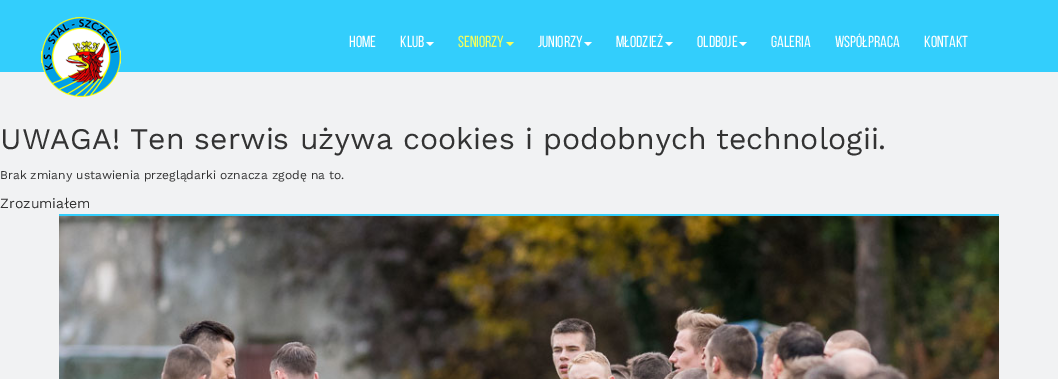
%!PS
<< /PageSize [1058 379] >> setpagedevice
/m/moveto load def
/l/rlineto load def
/z/closepath load def
/f/fill load def
/C { dup -16 bitshift 255 div exch dup -8 bitshift 255 and 255 div exch 255 and 255 div setrgbcolor } def
/F { [ exch dup neg 0 0 3 -1 roll 0 0 ] selectfont } def
/T { moveto show } def
/R { rectfill } def
/I { 5 dict begin { /h /w /y /x /name } { exch def } forall
  gsave x y translate w h scale
  w h 8 [w 0 0 h 0 0] name (r) file false 3 colorimage grestore end } def
0 379 translate 1 -1 scale
4 setmiterlimit
16#F1F2F3 C
0 0 1058 379 R
16#33CEFC C
0 0 1058 72 R
(1.rgb) 41 17 80 80 I
/BebasNeue-Regular 16 F
16#FFFFFF C
(HOME) 349 47 T
(KLUB) 400 47 T
426 42 m 8 0 l -4 4 l z f
16#F5FF5C C
(SENIORZY) 458 47 T
506 42 m 8 0 l -4 4 l z f
16#FFFFFF C
(JUNIORZY) 538 47 T
584 42 m 8 0 l -4 4 l z f
(MŁODZIEŻ) 616 47 T
665 42 m 8 0 l -4 4 l z f
(OLDBOJE) 697 47 T
739 42 m 8 0 l -4 4 l z f
(GALERIA) 771 47 T
(WSPÓŁPRACA) 835 47 T
(KONTAKT) 924 47 T
/WorkSans-Regular 30 F
16#333333 C
(UWAGA! Ten serwis używa cookies i podobnych technologii.) 0 149 T
/WorkSans-Regular 12 F
(Brak zmiany ustawienia przeglądarki oznacza zgodę na to.) 0 179 T
/WorkSans-Regular 14 F
(Zrozumiałem) 0 208 T
16#33CEFC C
59 214 940 2 R
(2.rgb) 59 216 940 163 I
showpage
